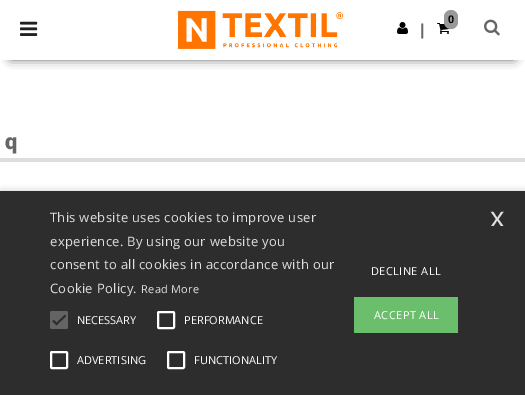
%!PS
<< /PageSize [525 395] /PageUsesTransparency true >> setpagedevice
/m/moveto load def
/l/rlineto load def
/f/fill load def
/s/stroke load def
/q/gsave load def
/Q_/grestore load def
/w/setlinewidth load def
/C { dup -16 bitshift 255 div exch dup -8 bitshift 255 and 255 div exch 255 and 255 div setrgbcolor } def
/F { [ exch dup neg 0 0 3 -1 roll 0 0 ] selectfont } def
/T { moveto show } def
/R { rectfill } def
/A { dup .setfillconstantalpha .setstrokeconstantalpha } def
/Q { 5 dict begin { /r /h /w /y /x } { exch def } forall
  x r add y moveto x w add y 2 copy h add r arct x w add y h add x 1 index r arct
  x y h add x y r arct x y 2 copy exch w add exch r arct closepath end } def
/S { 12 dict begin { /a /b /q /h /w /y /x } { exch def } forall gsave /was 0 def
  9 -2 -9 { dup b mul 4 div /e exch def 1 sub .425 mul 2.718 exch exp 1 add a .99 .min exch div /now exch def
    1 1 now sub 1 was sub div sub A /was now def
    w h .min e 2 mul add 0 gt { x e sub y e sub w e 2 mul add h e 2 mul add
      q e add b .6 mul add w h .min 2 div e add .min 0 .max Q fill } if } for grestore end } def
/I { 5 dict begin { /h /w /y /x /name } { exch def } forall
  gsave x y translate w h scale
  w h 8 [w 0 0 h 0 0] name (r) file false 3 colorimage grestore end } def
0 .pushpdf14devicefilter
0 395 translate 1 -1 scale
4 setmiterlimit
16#FFFFFF C
0 0 525 395 R
16#000000 C
11 19 503 38 0 5.5 1 S
16#FFFFFF C
0 6 525 54 R
(1.rgb) 20 21 18 15 I
(2.rgb) 178 10 166 39 I
(3.rgb) 397 22 11 12 I
/LiberationSans-Bold 16 F
16#666666 C
(|) 420 35 T
(4.rgb) 437 23 13 11 I
16#999999 C
444 10 14 19 7 Q f
/LiberationSans-Bold 11 F
16#000000 C
(0) 448 23 T
(5.rgb) 484 19 16 17 I
16#DDDDDD C
0 158 525 4 R
/Roboto-Black 22 F
16#666666 C
(q) 5 149 T
16#000000 C
1 193 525 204 0 4 .35 S
16#2D2D2D C
0 191 525 204 R
/OpenSans-Regular 13 F
16#E0E0E0 C
50 222 m .3 0 (This website uses cookies to improve user) ashow
50 246 m .3 0 (experience. By using our website you) ashow
50 269 m .3 0 (consent to all cookies in accordance with our) ashow
50 293 m .3 0 (Cookie Policy.) ashow
/OpenSans-Regular 11 F
141 293 m .3 0 (Read More) ashow
16#646464 C
50 311 18 18 2 Q f
16#2D2D2D C
1.8 w
53 320.5 m 3.5 3.5 l 9 -8.5 l s
16#FFFFFF C
(NECESSARY) 77 324 T
2 w
158 312 16 16 1 Q s
(PERFORMANCE) 184 324 T
51 352 16 16 1 Q s
(ADVERTISING) 77 364 T
168 352 16 16 1 Q s
(FUNCTIONALITY) 194 364 T
371 275 m .4 0 (DECLINE ALL) ashow
16#6BBE6B C
354 297 104 36 R
16#FFFFFF C
374 319 m .4 0 (ACCEPT ALL) ashow
q
490 211 15 15 rectclip
/LiberationSans-Regular 29 F
16#E0E0E0 C
(x) 490 227 T
Q_
.poppdf14devicefilter showpage
